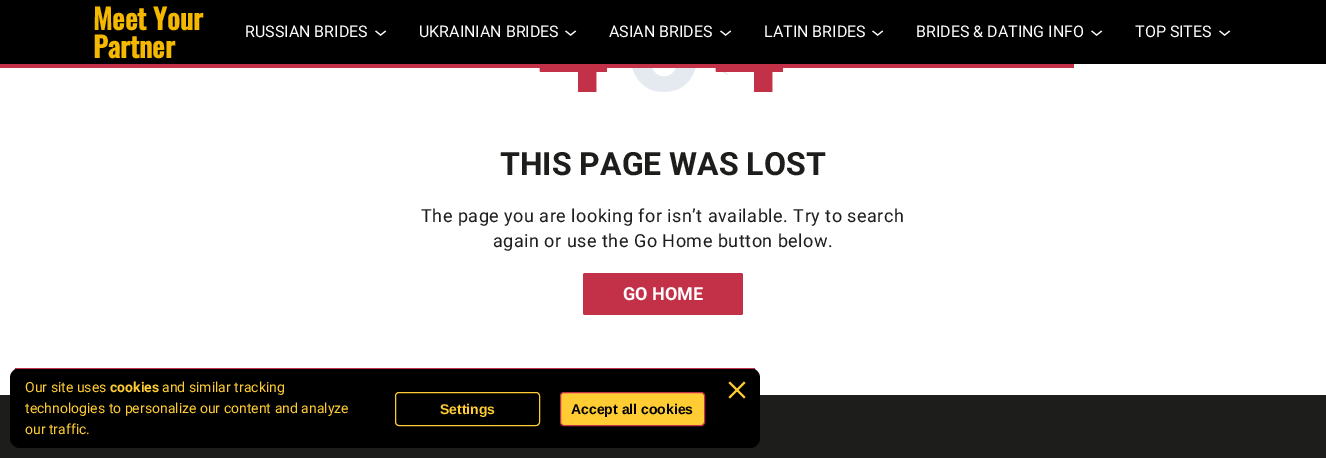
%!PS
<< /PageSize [1326 458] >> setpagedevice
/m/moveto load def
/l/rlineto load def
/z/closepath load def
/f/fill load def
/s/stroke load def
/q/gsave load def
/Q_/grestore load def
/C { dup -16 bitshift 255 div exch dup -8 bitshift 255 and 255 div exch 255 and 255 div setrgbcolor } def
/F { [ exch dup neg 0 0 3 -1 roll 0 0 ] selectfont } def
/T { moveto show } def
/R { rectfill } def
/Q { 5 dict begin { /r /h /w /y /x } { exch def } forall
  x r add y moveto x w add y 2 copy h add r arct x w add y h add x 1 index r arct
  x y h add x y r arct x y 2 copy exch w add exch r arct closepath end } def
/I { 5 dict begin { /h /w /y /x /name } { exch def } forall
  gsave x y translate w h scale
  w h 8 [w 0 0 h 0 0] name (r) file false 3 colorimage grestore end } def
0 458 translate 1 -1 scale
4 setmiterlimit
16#FFFFFF C
0 0 1326 458 R
16#000000 C
0 0 1326 64 R
/Oswald-Bold 28 F
16#F5B800 C
(Meet Your) 93 30 T
(Partner) 93 58 T
/Roboto-Regular 16 F
16#FFFFFF C
(RUSSIAN BRIDES) 245 37 T
(1.rgb) 375 30 12 6 I
(UKRAINIAN BRIDES) 419 37 T
(1.rgb) 565 30 12 6 I
(ASIAN BRIDES) 609 37 T
(1.rgb) 720 30 12 6 I
(LATIN BRIDES) 764 37 T
(1.rgb) 872 30 12 6 I
(BRIDES & DATING INFO) 916 37 T
(1.rgb) 1091 30 12 6 I
(TOP SITES) 1135 37 T
(1.rgb) 1219 30 12 6 I
16#C33149 C
0 64 1074 4 R
(2.rgb) 539 68 244 24 I
/Roboto-Bold 32 F
16#1D1D1B C
(THIS PAGE WAS LOST) 500 175 T
/Roboto-Regular 18 F
421 222 m .5 0 (The page you are looking for isn’t available. Try to search) ashow
493 247 m .5 0 (again or use the Go Home button below.) ashow
16#C33149 C
583 273 160 42 2 Q f
/Roboto-Bold 18 F
16#FFFFFF C
(GO HOME) 623 300 T
16#1D1D1B C
0 395 1326 63 R
16#000000 C
10 368 750 80 10 Q f
16#C33149 C
15 368 740 1 R
/Roboto-Regular 14 F
16#FFCC33 C
(Our site uses) 25 392 T
/Roboto-Bold 14 F
(cookies) 110 392 T
/Roboto-Regular 14 F
(and similar tracking) 162 392 T
(technologies to personalize our content and analyze) 25 413 T
(our traffic.) 25 434 T
744 381.5 m 1.5 1.5 l -15.5 15.5 l -1.5 -1.5 l z f
728.5 383 m 1.5 -1.5 l 15.5 15.5 l -1.5 1.5 l z f
395.5 392.5 144 33 3.5 Q s
/LiberationSans-Bold 14 F
(Settings) 440 414 T
560.5 392.5 144 33 3.5 Q q f Q_
16#C33149 C
s
16#000000 C
(Accept all cookies) 571 414 T
showpage
